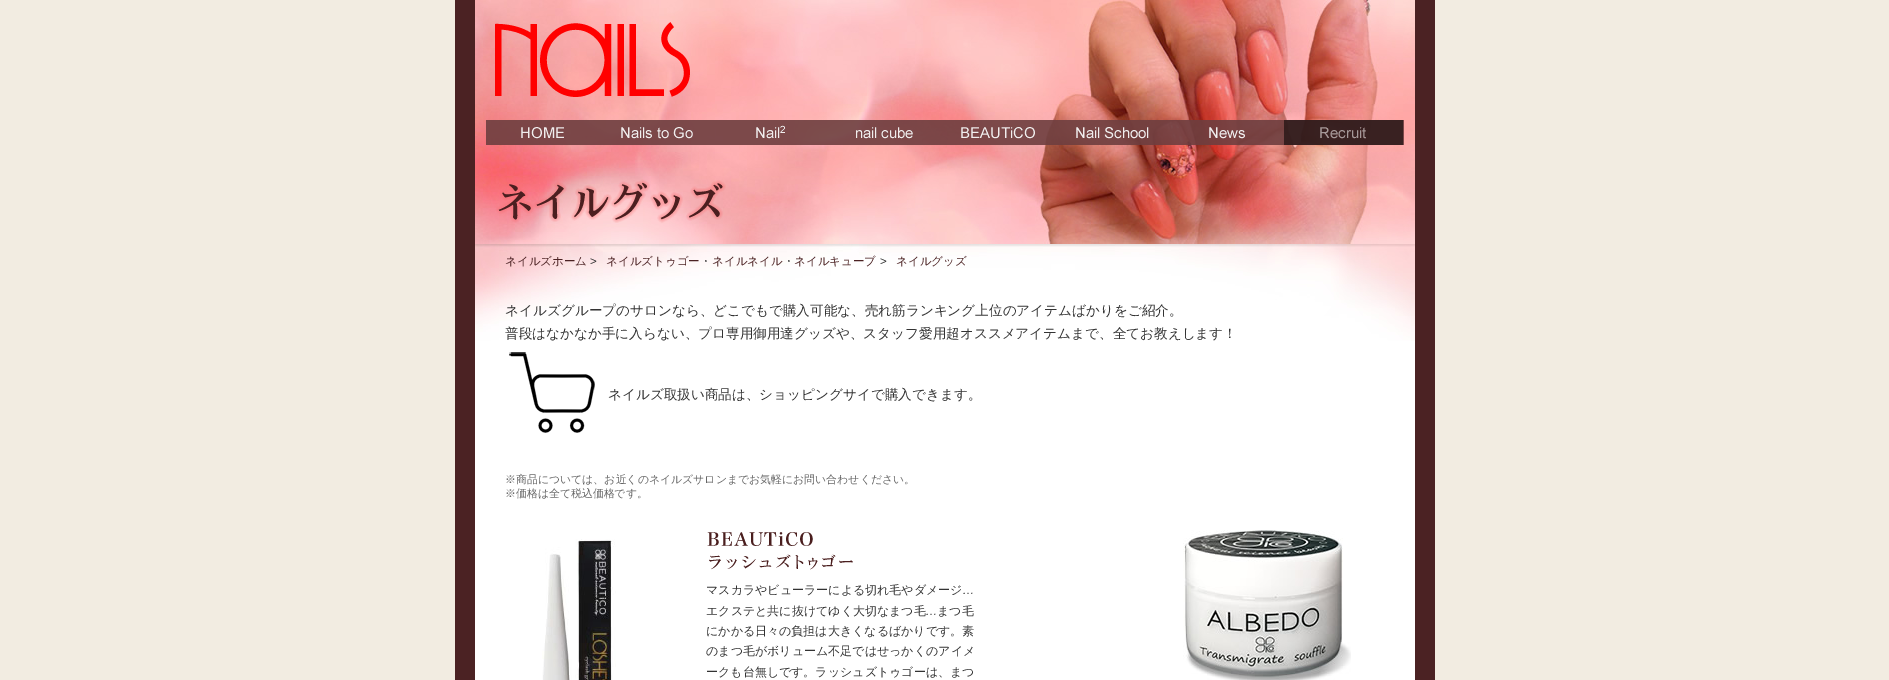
%!PS
<< /PageSize [1889 680] /PageUsesTransparency true >> setpagedevice
/C { dup -16 bitshift 255 div exch dup -8 bitshift 255 and 255 div exch 255 and 255 div setrgbcolor } def
/F { [ exch dup neg 0 0 3 -1 roll 0 0 ] selectfont } def
/T { moveto show } def
/R { rectfill } def
/A { dup .setfillconstantalpha .setstrokeconstantalpha } def
/I { 5 dict begin { /h /w /y /x /name } { exch def } forall
  gsave x y translate w h scale
  w h 8 [w 0 0 h 0 0] name (r) file false 3 colorimage grestore end } def
0 .pushpdf14devicefilter
0 680 translate 1 -1 scale
4 setmiterlimit
16#F2ECE1 C
0 0 1889 680 R
16#FFFFFF C
475 341 940 339 R
16#4B2223 C
1415 0 20 680 R
455 0 20 680 R
(1.rgb) 475 244 940 97 I
(2.rgb) 475 0 940 244 I
(3.rgb) 495 22 195 75 I
0.9 A
16#6E3E3F C
486 120 918 25 R
1 A
(4.rgb) 521 127 43 12 I
(5.rgb) 621 127 72 12 I
(6.rgb) 756 125 29 14 I
(7.rgb) 856 127 57 12 I
(8.rgb) 961 127 74 12 I
(9.rgb) 1076 127 73 12 I
(10.rgb) 1209 127 36 12 I
0.54 A
16#000000 C
1284 120 119 25 R
1 A
(11.rgb) 1320 127 46 12 I
(12.rgb) 496 179 230 44 I
/WenQuanYiZenHei-Medium 11.5 F
16#4B2223 C
(ネイルズホーム) 505 265 T
/LiberationSans-Regular 11.5 F
16#333333 C
(>) 590 265 T
/WenQuanYiZenHei-Medium 11.5 F
16#4B2223 C
(ネイルズトゥゴー) 606 265 T
16#333333 C
(・) 700 265 T
16#4B2223 C
(ネイルネイル) 712 265 T
16#333333 C
(・) 783 265 T
16#4B2223 C
(ネイルキューブ) 794 265 T
/LiberationSans-Regular 11.5 F
16#333333 C
(>) 880 265 T
/WenQuanYiZenHei-Medium 11.5 F
16#4B2223 C
(ネイルグッズ) 896 265 T
/WenQuanYiZenHei-Medium 13.6 F
16#333333 C
(ネイルズグループのサロンなら、どこでもで購入可能な、売れ筋ランキング上位のアイテムばかりをご紹介。) 505 315 T
(普段はなかなか手に入らない、プロ専用御用達グッズや、スタッフ愛用超オススメアイテムまで、全てお教えします！) 505 338 T
(13.rgb) 509 352 86 81 I
(ネイルズ取扱い商品は、ショッピングサイで購入できます。) 608 399 T
/WenQuanYiZenHei-Medium 10.9 F
16#666666 C
(※商品については、お近くのネイルズサロンまでお気軽にお問い合わせください。) 505 483 T
(※価格は全て税込価格です。) 505 497 T
(14.rgb) 542 539 74 141 I
(15.rgb) 707 532 146 38 I
/WenQuanYiZenHei-Medium 12 F
16#333333 C
(マスカラやビューラーによる切れ毛やダメージ) 706 594 T
/LiberationSans-Regular 12 F
(…) 962 594 T
/WenQuanYiZenHei-Medium 12 F
(エクステと共に抜けてゆく大切なまつ毛) 706 615 T
/LiberationSans-Regular 12 F
(…) 925 615 T
/WenQuanYiZenHei-Medium 12 F
(まつ毛) 937 615 T
(にかかる日々の負担は大きくなるばかりです。素) 706 635 T
(のまつ毛がボリューム不足ではせっかくのアイメ) 706 655 T
(ークも台無しです。ラッシュズトゥゴーは、まつ) 706 676 T
(16.rgb) 1183 530 168 150 I
.poppdf14devicefilter showpage
